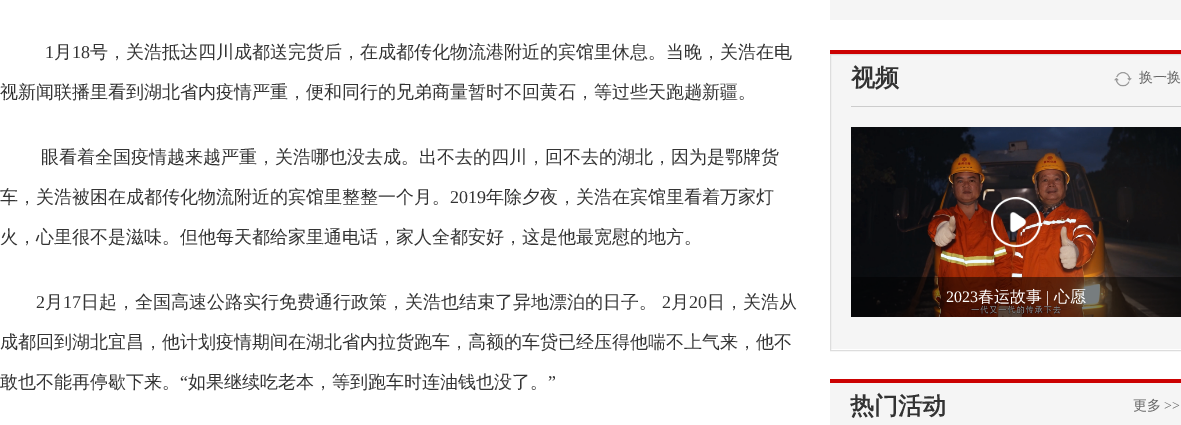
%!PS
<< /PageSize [1181 425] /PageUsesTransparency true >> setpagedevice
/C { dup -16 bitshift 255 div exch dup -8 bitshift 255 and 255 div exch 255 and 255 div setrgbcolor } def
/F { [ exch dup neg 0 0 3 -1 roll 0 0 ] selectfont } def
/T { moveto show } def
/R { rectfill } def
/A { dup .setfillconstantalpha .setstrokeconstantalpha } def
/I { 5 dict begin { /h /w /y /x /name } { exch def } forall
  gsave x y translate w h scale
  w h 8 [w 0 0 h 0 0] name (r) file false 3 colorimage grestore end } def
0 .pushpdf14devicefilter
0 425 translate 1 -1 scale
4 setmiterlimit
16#FFFFFF C
0 0 1181 425 R
/LiberationSerif-Regular 18 F
16#333333 C
(1) 45 58 T
/WenQuanYiZenHei-Medium 18 F
(月) 54 58 T
/LiberationSerif-Regular 18 F
(18) 72 58 T
/WenQuanYiZenHei-Medium 18 F
(号，关浩抵达四川成都送完货后，在成都传化物流港附近的宾馆里休息。当晚，关浩在电) 90 58 T
(视新闻联播里看到湖北省内疫情严重，便和同行的兄弟商量暂时不回黄石，等过些天跑趟新疆。) 0 98 T
(眼看着全国疫情越来越严重，关浩哪也没去成。出不去的四川，回不去的湖北，因为是鄂牌货) 41 163 T
(车，关浩被困在成都传化物流附近的宾馆里整整一个月。) 0 203 T
/LiberationSerif-Regular 18 F
(2019) 450 203 T
/WenQuanYiZenHei-Medium 18 F
(年除夕夜，关浩在宾馆里看着万家灯) 486 203 T
(火，心里很不是滋味。但他每天都给家里通电话，家人全都安好，这是他最宽慰的地方。) 0 243 T
/LiberationSerif-Regular 18 F
(2) 36 308 T
/WenQuanYiZenHei-Medium 18 F
(月) 45 308 T
/LiberationSerif-Regular 18 F
(17) 63 308 T
/WenQuanYiZenHei-Medium 18 F
(日起，全国高速公路实行免费通行政策，关浩也结束了异地漂泊的日子。) 81 308 T
/LiberationSerif-Regular 18 F
(2) 662 308 T
/WenQuanYiZenHei-Medium 18 F
(月) 671 308 T
/LiberationSerif-Regular 18 F
(20) 689 308 T
/WenQuanYiZenHei-Medium 18 F
(日，关浩从) 707 308 T
(成都回到湖北宜昌，他计划疫情期间在湖北省内拉货跑车，高额的车贷已经压得他喘不上气来，他不) 0 348 T
(敢也不能再停歇下来。) 0 388 T
/LiberationSerif-Regular 18 F
(“) 180 388 T
/WenQuanYiZenHei-Medium 18 F
(如果继续吃老本，等到跑车时连油钱也没了。) 188 388 T
/LiberationSerif-Regular 18 F
(”) 548 388 T
16#F5F5F5 C
830 0 351 20 R
831 55 350 294 R
16#CC0202 C
830 50 351 4 R
16#DDDDDD C
830.5 54.5 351 296 rectstroke
16#CCCCCC C
851 106 330 1 R
/WenQuanYiZenHei-Bold 24 F
16#333333 C
(视频) 851 86 T
(1.rgb) 1114 72 18 15 I
/WenQuanYiZenHei-Medium 14 F
16#666666 C
(换一换) 1139 82 T
(2.rgb) 851 127 330 190 I
(3.rgb) 991 197 50 50 I
0.5 A
16#000000 C
851 277 330 40 R
/LiberationSerif-Regular 16 F
1 A
16#FFFFFF C
(2023) 946 302 T
/WenQuanYiZenHei-Medium 16 F
(春运故事) 978 302 T
/LiberationSerif-Regular 16 F
(|) 1046 302 T
/WenQuanYiZenHei-Medium 16 F
(心愿) 1054 302 T
16#F5F5F5 C
830 383 351 42 R
16#CC0202 C
830 379 351 4 R
/WenQuanYiZenHei-Bold 24 F
16#333333 C
(热门活动) 850 414 T
/WenQuanYiZenHei-Medium 14 F
16#666666 C
(更多) 1133 410 T
/LiberationSerif-Regular 14 F
(>>) 1164 410 T
.poppdf14devicefilter showpage
